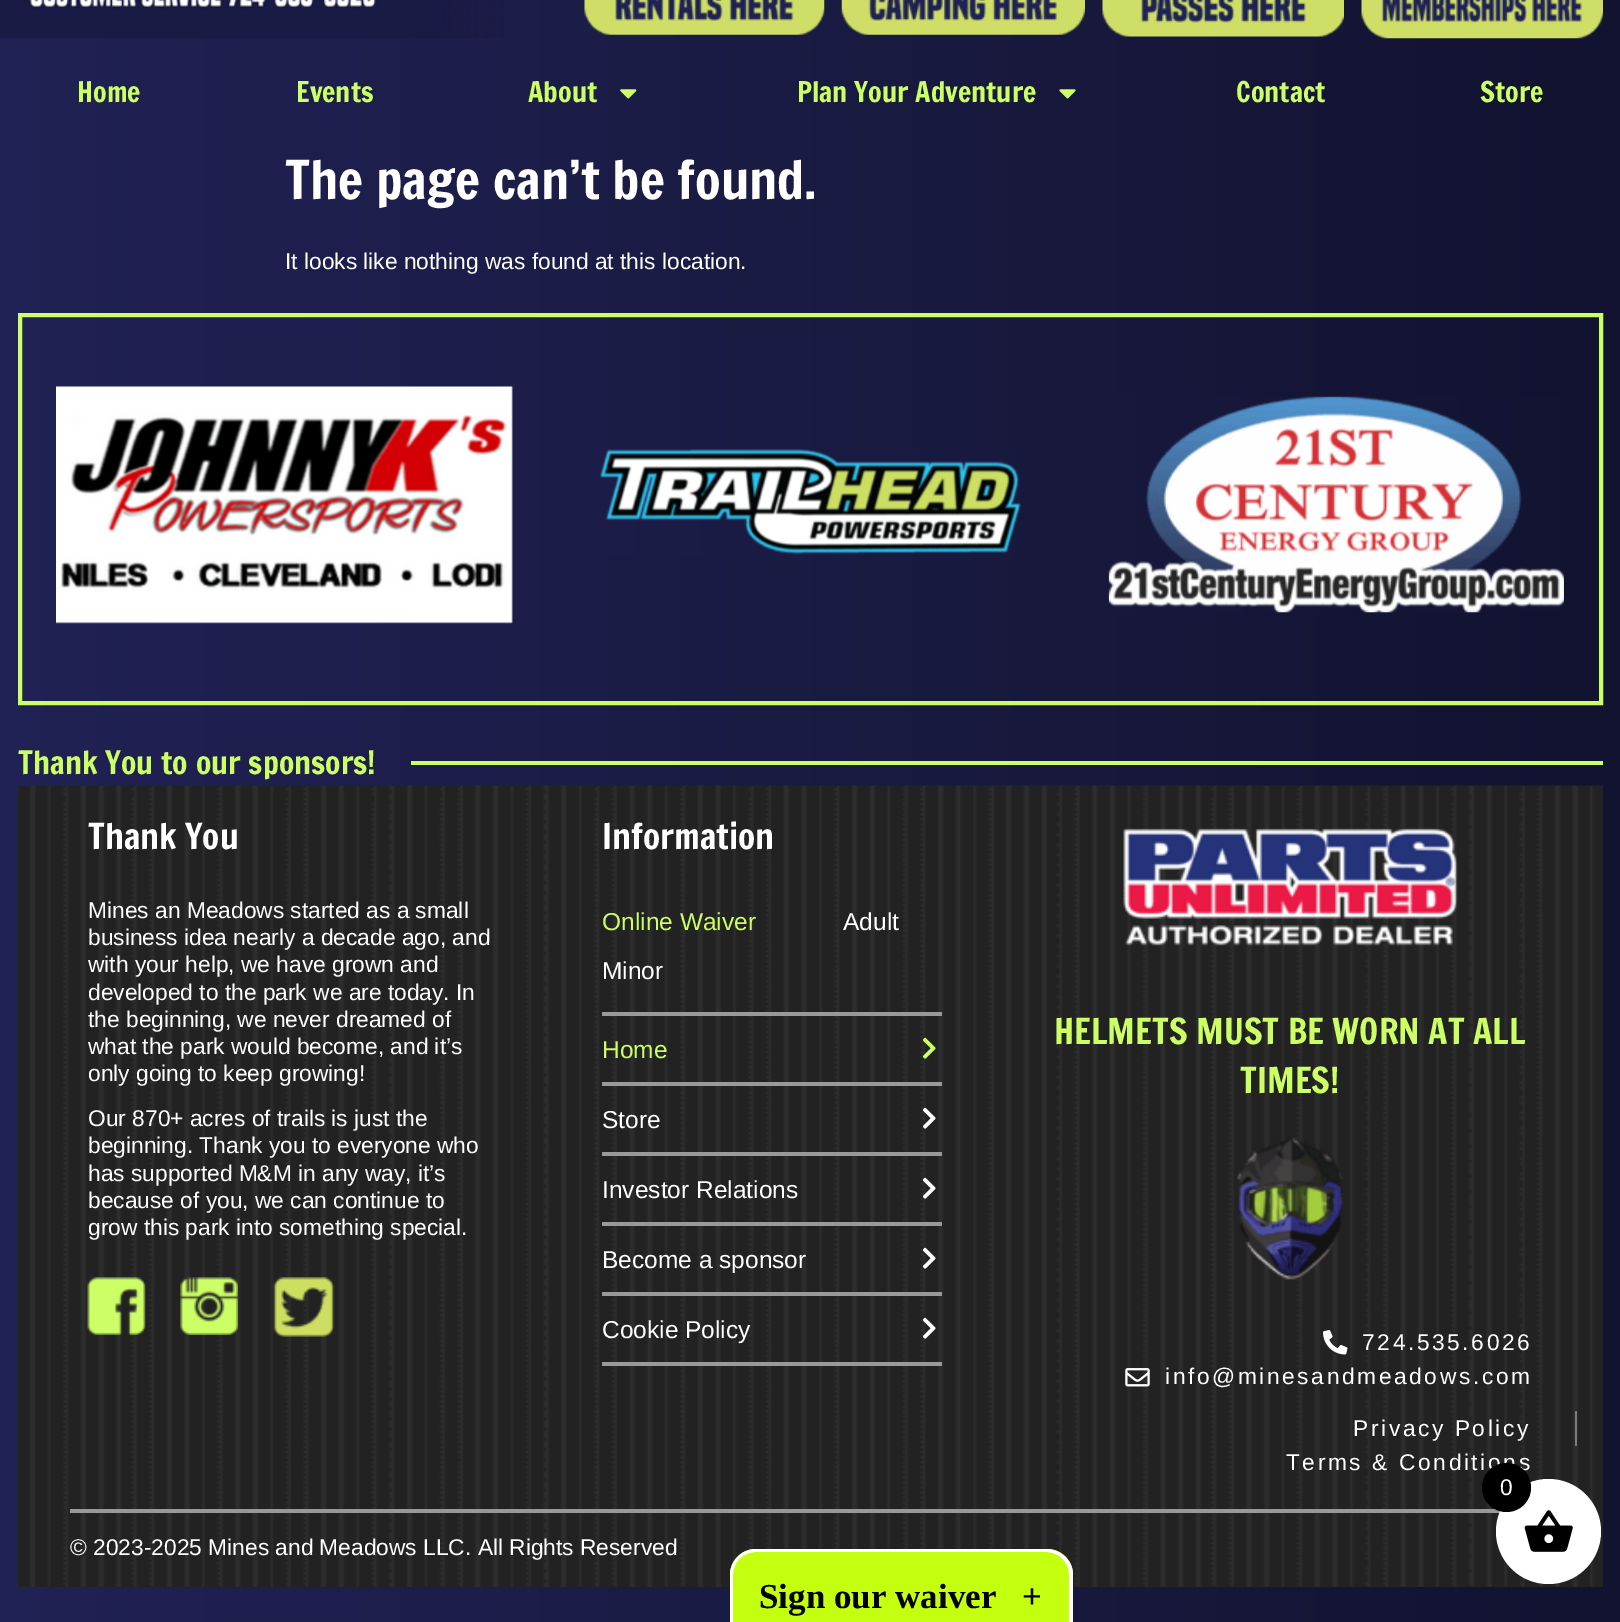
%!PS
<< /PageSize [1620 1622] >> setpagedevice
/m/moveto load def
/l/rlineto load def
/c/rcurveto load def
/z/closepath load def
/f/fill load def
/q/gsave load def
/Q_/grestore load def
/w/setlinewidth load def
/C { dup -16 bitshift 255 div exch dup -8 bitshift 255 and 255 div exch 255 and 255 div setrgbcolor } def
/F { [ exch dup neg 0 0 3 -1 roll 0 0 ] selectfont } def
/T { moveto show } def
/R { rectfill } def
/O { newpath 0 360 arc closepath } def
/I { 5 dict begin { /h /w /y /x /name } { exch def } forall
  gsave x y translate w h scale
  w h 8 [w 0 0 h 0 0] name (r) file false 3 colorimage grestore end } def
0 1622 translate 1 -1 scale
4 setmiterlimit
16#FFFFFF C
0 0 1620 1622 R
q 0 0 m 1620 0 l 0 1622 l -1620 0 l z clip newpath
<< /ShadingType 2 /ColorSpace /DeviceRGB /Coords [0 698 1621 698] /Extend [true true] /Function << /FunctionType 2 /Domain [0 1] /C0 [.129 .133 .333] /C1 [.071 .075 .188] /N 1 >> >> shfill Q_
(1.rgb) 0 0 504 39 I
(2.rgb) 584 0 241 35 I
(3.rgb) 841 0 244 35 I
(4.rgb) 1102 0 242 37 I
(5.rgb) 1361 0 242 39 I
/FrancoisOne-Regular 28 F
16#CCFF66 C
(Home) 77 102 T
(Events) 296 102 T
(About) 528 102 T
(6.rgb) 620 89 17 10 I
(Plan Your Adventure) 797 102 T
(7.rgb) 1059 89 17 10 I
(Contact) 1236 102 T
(Store) 1480 102 T
/FrancoisOne-Regular 52.5 F
16#FFFFFF C
(The page can’t be found.) 285 199 T
/LiberationSans-Regular 22.75 F
(It looks like nothing was found at this location.) 285 269 T
16#CCFF66 C
4 w
20 315 1581 388 rectstroke
(8.rgb) 56 386 457 238 I
(9.rgb) 600 449 421 106 I
(10.rgb) 1108 396 456 217 I
/FrancoisOne-Regular 31.5 F
(Thank You to our sponsors!) 18 774 T
411 761 1192 4 R
(11.rgb) 17 785 1586 802 I
/FrancoisOne-Regular 35 F
16#FFFFFF C
(Thank You) 88 849 T
/LiberationSans-Regular 22.75 F
(Mines an Meadows started as a small) 88 918 T
(business idea nearly a decade ago, and) 88 945 T
(with your help, we have grown and) 88 972 T
(developed to the park we are today. In) 88 1000 T
(the beginning, we never dreamed of) 88 1027 T
(what the park would become, and it’s) 88 1054 T
(only going to keep growing!) 88 1081 T
(Our 870+ acres of trails is just the) 88 1126 T
(beginning. Thank you to everyone who) 88 1153 T
(has supported M&M in any way, it’s) 88 1181 T
(because of you, we can continue to) 88 1208 T
(grow this park into something special.) 88 1235 T
(12.rgb) 87 1277 59 58 I
(13.rgb) 180 1277 58 58 I
(14.rgb) 273 1277 62 60 I
/FrancoisOne-Regular 35 F
(Information) 602 849 T
/LiberationSans-Regular 24.5 F
16#CCFF66 C
(Online Waiver) 602 930 T
16#FFFFFF C
(Adult) 843 930 T
(Minor) 602 979 T
16#999999 C
602 1012 340 4 R
602 1082 340 4 R
16#CCFF66 C
(Home) 602 1058 T
(15.rgb) 922 1037 14 22 I
16#999999 C
602 1152 340 4 R
16#FFFFFF C
(Store) 602 1128 T
(16.rgb) 922 1107 14 22 I
16#999999 C
602 1222 340 4 R
16#FFFFFF C
(Investor Relations) 602 1198 T
(17.rgb) 922 1177 14 22 I
16#999999 C
602 1292 340 4 R
16#FFFFFF C
(Become a sponsor) 602 1268 T
(18.rgb) 922 1247 14 22 I
16#999999 C
602 1362 340 4 R
16#FFFFFF C
(Cookie Policy) 602 1338 T
(19.rgb) 922 1317 14 22 I
(20.rgb) 1123 828 335 118 I
/FrancoisOne-Regular 35 F
16#CCFF66 C
(HELMETS MUST BE WORN AT ALL) 1054 1044 T
(TIMES!) 1240 1093 T
(21.rgb) 1237 1137 106 143 I
(22.rgb) 1323 1330 25 25 I
/LiberationSans-Regular 22.75 F
16#FFFFFF C
1362 1350 m 2.6 0 (724.535.6026) ashow
(23.rgb) 1125 1368 25 19 I
1165 1384 m 2.6 0 (info@minesandmeadows.com) ashow
1353 1436 m 2.6 0 (Privacy Policy) ashow
16#7C7C7C C
1575 1411 2 35 R
16#FFFFFF C
1286 1470 m 2.6 0 (Terms & Conditions) ashow
16#999999 C
70 1509 1431 4 R
16#FFFFFF C
(© 2023-2025 Mines and Meadows LLC. All Rights Reserved) 70 1555 T
1548.5 1531.5 52.5 O f
(24.rgb) 1524 1510 49 42 I
16#000000 C
1506.5 1487.5 24.5 O f
16#FFFFFF C
(0) 1500 1495 T
16#C4FF0F C
756 1549 m 291 0 l 14.5 0 26 11.5 26 26 c 0 47 l -343 0 l 0 -47 l 0 -14.5 11.5 -26 26 -26 c z f
16#FFFFFF C
756 1549 m 290 0 l 15 0 27 12 27 26 c 0 47 l -343 0 l 0 -47 l 0 -14 12 -26 26 -26 c z 756 1552 m 290 0 l 13 0 23 10 23 23 c 0 47 l -336 0 l 0 -47 l 0 -13 10 -23 23 -23 c z eofill
/LiberationSerif-Bold 35 F
16#000000 C
(Sign our waiver) 759 1608 T
(+) 1022 1608 T
showpage
